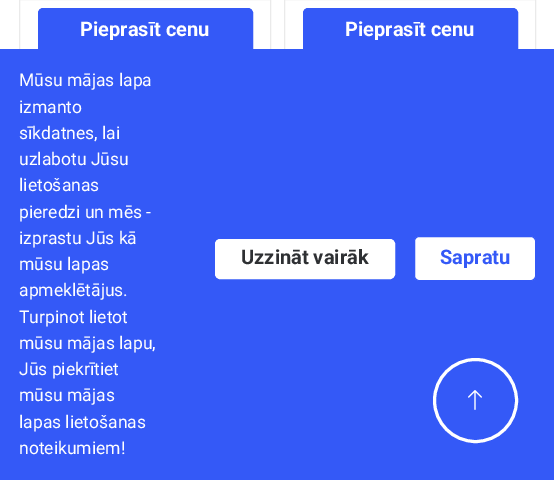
%!PS
<< /PageSize [554 480] >> setpagedevice
/f/fill load def
/s/stroke load def
/q/gsave load def
/Q_/grestore load def
/w/setlinewidth load def
/C { dup -16 bitshift 255 div exch dup -8 bitshift 255 and 255 div exch 255 and 255 div setrgbcolor } def
/F { [ exch dup neg 0 0 3 -1 roll 0 0 ] selectfont } def
/T { moveto show } def
/R { rectfill } def
/O { newpath 0 360 arc closepath } def
/Q { 5 dict begin { /r /h /w /y /x } { exch def } forall
  x r add y moveto x w add y 2 copy h add r arct x w add y h add x 1 index r arct
  x y h add x y r arct x y 2 copy exch w add exch r arct closepath end } def
/I { 5 dict begin { /h /w /y /x /name } { exch def } forall
  gsave x y translate w h scale
  w h 8 [w 0 0 h 0 0] name (r) file false 3 colorimage grestore end } def
0 480 translate 1 -1 scale
4 setmiterlimit
16#FFFFFF C
0 0 554 480 R
16#EAEAEA C
19.5 -.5 251 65 rectstroke
16#3459F7 C
38.5 8.5 214 44 4.5 Q q f Q_
s
/Roboto-Bold 20 F
16#FFFFFF C
(Pieprasīt cenu) 80 36 T
16#EAEAEA C
284.5 -.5 251 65 rectstroke
16#3459F7 C
303.5 8.5 214 44 4.5 Q q f Q_
s
16#FFFFFF C
(Pieprasīt cenu) 345 36 T
16#3459F7 C
0 49 554 431 R
/Roboto-Regular 17.5 F
16#FFFFFF C
(Mūsu mājas lapa) 19 86 T
(izmanto) 19 113 T
(sīkdatnes, lai) 19 139 T
(uzlabotu Jūsu) 19 165 T
(lietošanas) 19 191 T
(pieredzi un mēs -) 19 218 T
(izprastu Jūs kā) 19 244 T
(mūsu lapas) 19 270 T
(apmeklētājus.) 19 296 T
(Turpinot lietot) 19 323 T
(mūsu mājas lapu,) 19 349 T
(Jūs piekrītiet) 19 375 T
(mūsu mājas) 19 401 T
(lapas lietošanas) 19 428 T
(noteikumiem!) 19 454 T
215.5 239.5 179 39 4.5 Q q f Q_
s
/Roboto-Bold 20 F
16#2E3033 C
(Uzzināt vairāk) 241 264 T
16#FFFFFF C
414.5 236.5 121 44 4.5 Q q f Q_
16#3459F7 C
s
(Sapratu) 440 264 T
16#FFFFFF C
3 w
475.5 400.5 41 O s
(1.rgb) 468 390 14 20 I
showpage
